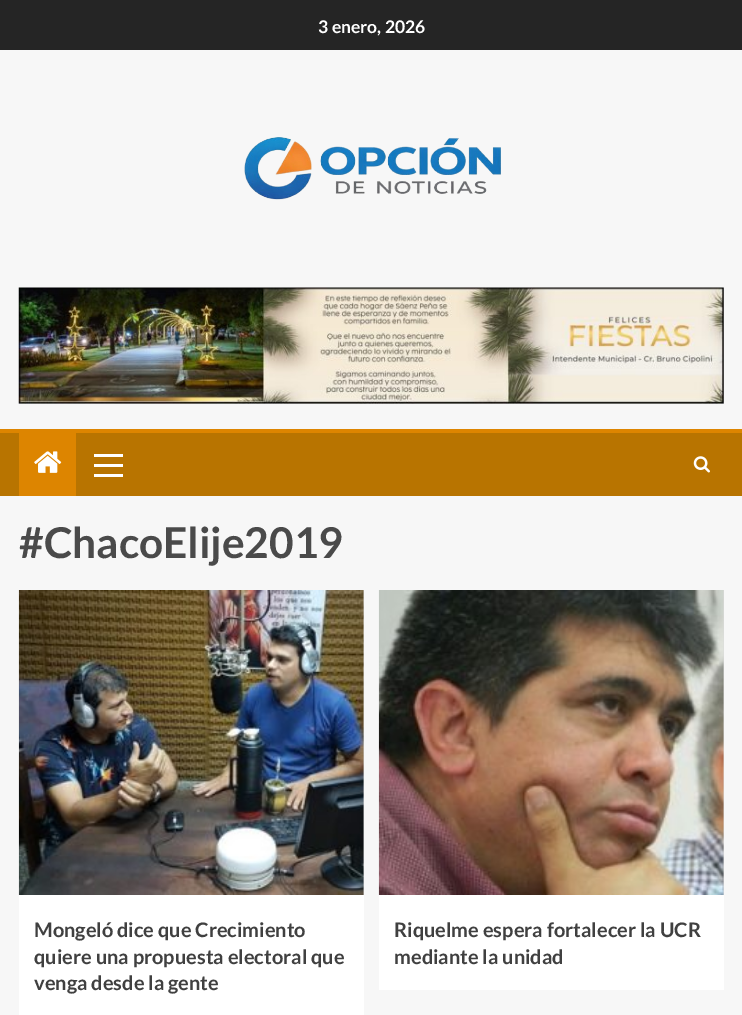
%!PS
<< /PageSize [742 1015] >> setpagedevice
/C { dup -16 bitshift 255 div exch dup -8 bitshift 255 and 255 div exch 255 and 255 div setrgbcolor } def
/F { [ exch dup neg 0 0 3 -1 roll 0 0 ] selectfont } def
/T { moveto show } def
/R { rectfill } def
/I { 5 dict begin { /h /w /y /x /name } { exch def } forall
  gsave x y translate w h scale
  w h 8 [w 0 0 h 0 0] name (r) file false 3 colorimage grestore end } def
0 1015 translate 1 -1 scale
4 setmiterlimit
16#F7F7F7 C
0 0 742 1015 R
16#252525 C
0 0 742 50 R
/Lato-Bold 17.5 F
16#FFFFFF C
(3 enero, 2026) 318 33 T
(1.rgb) 244 137 257 63 I
(2.rgb) 18 287 706 117 I
16#DD8500 C
0 429 742 4 R
16#B87400 C
0 433 742 63 R
16#DD8500 C
19 433 57 63 R
(3.rgb) 34 451 28 22 I
16#FFFFFF C
94 464 29 3 R
94 454 29 3 R
94 474 29 3 R
(4.rgb) 693 456 17 17 I
/Lato-Bold 42.5 F
16#4A4A4A C
(#ChacoElije2019) 19 558 T
16#FFFFFF C
19 895 345 120 R
16#DADADA C
363 590 1 305 R
(5.rgb) 18 590 346 305 I
/Lato-Bold 20 F
16#404040 C
(Mongeló dice que Crecimiento) 34 937 T
(quiere una propuesta electoral que) 34 964 T
(venga desde la gente) 34 990 T
16#FFFFFF C
379 895 345 95 R
16#DADADA C
723 590 1 305 R
(6.rgb) 378 590 346 305 I
16#404040 C
(Riquelme espera fortalecer la UCR) 394 937 T
(mediante la unidad) 394 964 T
showpage
